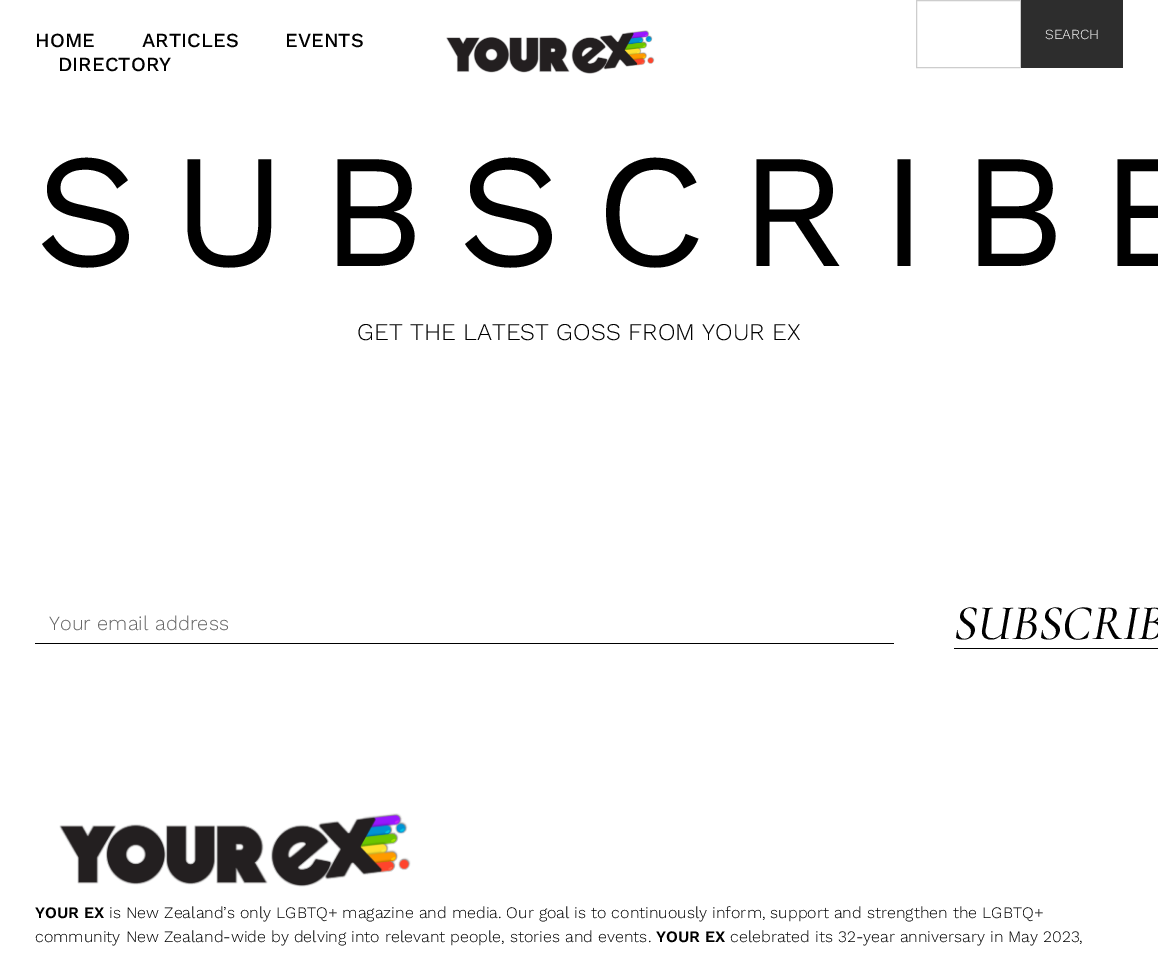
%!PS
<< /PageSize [1158 953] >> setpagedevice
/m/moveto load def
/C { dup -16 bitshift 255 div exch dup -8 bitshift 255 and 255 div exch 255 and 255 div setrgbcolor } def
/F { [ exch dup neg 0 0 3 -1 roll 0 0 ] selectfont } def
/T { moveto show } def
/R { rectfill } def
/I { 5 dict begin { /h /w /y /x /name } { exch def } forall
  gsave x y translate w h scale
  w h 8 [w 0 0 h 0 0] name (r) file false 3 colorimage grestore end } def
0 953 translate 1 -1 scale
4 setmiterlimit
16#FFFFFF C
0 0 1158 953 R
/WorkSans-Medium 20 F
16#000000 C
(HOME) 35 47 T
(ARTICLES) 142 47 T
(EVENTS) 285 47 T
(DIRECTORY) 58 71 T
(1.rgb) 446 30 209 44 I
16#CDCDCD C
916.5 .5 104 67 rectstroke
16#2D2D2D C
1021 0 102 68 R
/WorkSans-Light 14 F
16#FFFFFF C
(SEARCH) 1045 39 T
/WorkSans-Regular 162 F
16#000000 C
35 266 m 33 0 (SUBSCRIBE) ashow
/WorkSans-Light 24 F
(GET THE LATEST GOSS FROM YOUR EX) 357 340 T
35 643 859 1 R
/WorkSans-Light 20 F
16#666666 C
(Your email address) 49 630 T
16#000000 C
954 648 204 1 R
/CormorantInfant-MediumItalic 50 F
(SUBSCRIB) 954 639 T
(2.rgb) 59 813 352 74 I
/WorkSans-SemiBold 16 F
(YOUR EX) 35 918 T
/WorkSans-Light 16 F
(is New Zealand’s only LGBTQ+ magazine and media. Our goal is to continuously inform, support and strengthen the LGBTQ+) 109 918 T
(community New Zealand-wide by delving into relevant people, stories and events.) 35 942 T
/WorkSans-SemiBold 16 F
(YOUR EX) 656 942 T
/WorkSans-Light 16 F
(celebrated its 32-year anniversary in May 2023,) 730 942 T
showpage
